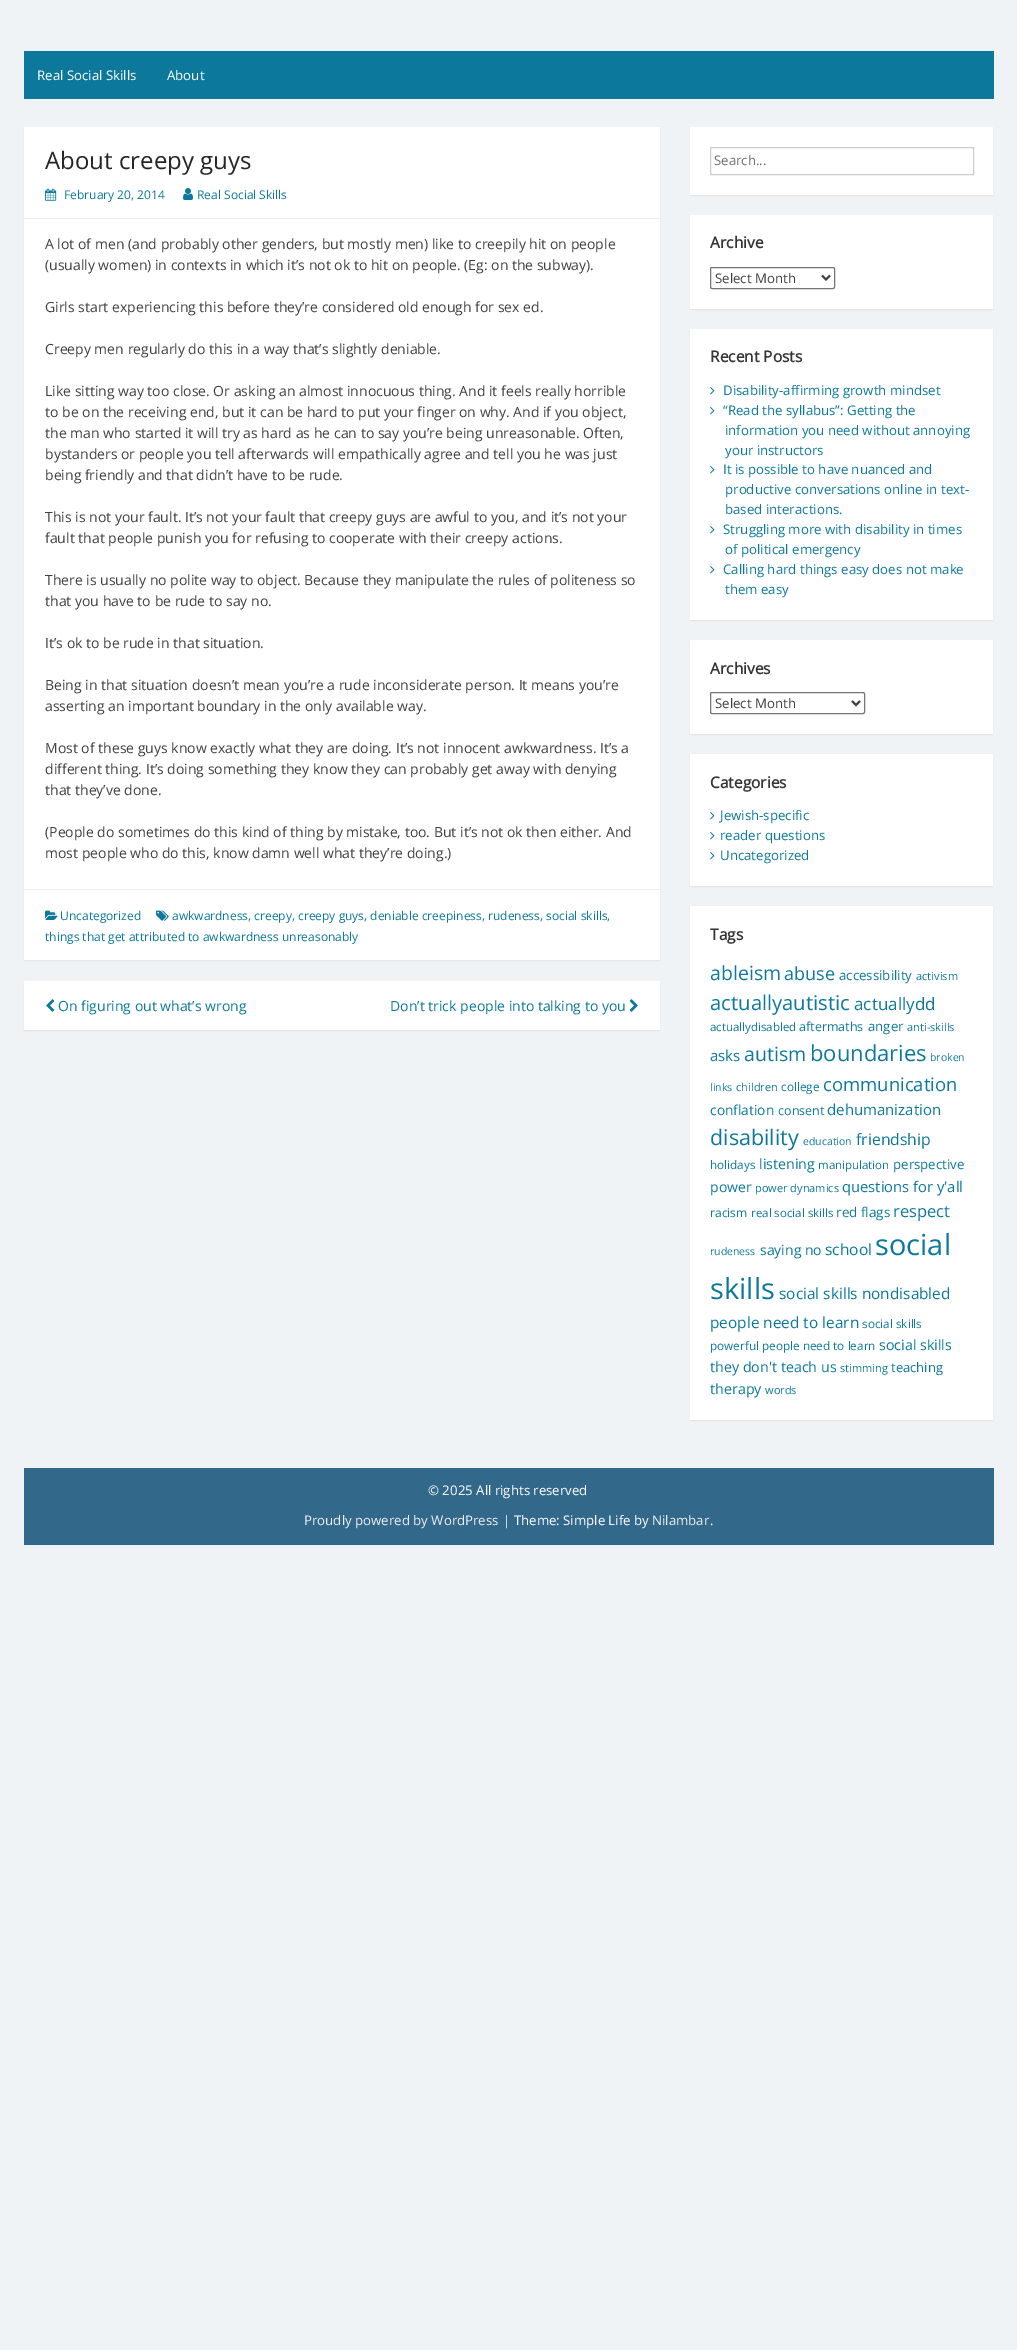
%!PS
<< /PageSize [1017 2350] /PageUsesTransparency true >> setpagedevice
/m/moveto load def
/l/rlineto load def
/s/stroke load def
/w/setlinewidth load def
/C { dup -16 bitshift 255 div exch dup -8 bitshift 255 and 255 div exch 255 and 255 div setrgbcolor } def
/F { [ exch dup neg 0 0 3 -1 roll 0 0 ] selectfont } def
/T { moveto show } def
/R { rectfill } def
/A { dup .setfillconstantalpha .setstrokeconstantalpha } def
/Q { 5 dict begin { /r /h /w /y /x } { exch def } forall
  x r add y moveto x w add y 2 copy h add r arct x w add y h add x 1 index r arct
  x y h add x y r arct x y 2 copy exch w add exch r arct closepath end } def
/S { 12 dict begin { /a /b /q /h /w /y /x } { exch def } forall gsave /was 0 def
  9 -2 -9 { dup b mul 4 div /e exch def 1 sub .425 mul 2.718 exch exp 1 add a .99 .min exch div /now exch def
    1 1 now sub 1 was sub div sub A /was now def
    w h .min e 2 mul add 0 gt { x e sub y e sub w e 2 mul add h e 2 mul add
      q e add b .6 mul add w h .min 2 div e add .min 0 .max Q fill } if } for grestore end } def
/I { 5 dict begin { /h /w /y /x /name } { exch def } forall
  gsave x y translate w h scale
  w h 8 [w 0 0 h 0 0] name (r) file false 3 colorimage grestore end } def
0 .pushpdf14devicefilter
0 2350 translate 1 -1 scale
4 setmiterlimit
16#F0F3F5 C
0 0 1017 2350 R
16#0B789C C
24 51 970 48 R
/OpenSans-Regular 13.25 F
16#FFFFFF C
(Real Social Skills) 37 80 T
(About) 167 80 T
16#000000 C
24 128 636 833 0 .5 .06 S
16#FFFFFF C
24 127 636 833 R
16#EDEDED C
24 218 636 1 R
/OpenSans-Regular 24 F
16#252525 C
(About creepy guys) 45 169 T
(1.rgb) 45 188 12 13 I
/OpenSans-Regular 12 F
16#0B789C C
(February 20, 2014) 64 199 T
(2.rgb) 183 188 10 12 I
(Real Social Skills) 197 199 T
/OpenSans-Regular 14 F
16#404040 C
(A lot of men \(and probably other genders, but mostly men\) like to creepily hit on people) 45 249 T
(\(usually women\) in contexts in which it’s not ok to hit on people. \(Eg: on the subway\).) 45 270 T
(Girls start experiencing this before they’re considered old enough for sex ed.) 45 312 T
(Creepy men regularly do this in a way that’s slightly deniable.) 45 354 T
(Like sitting way too close. Or asking an almost innocuous thing. And it feels really horrible) 45 396 T
(to be on the receiving end, but it can be hard to put your finger on why. And if you object,) 45 417 T
(the man who started it will try as hard as he can to say you’re being unreasonable. Often,) 45 438 T
(bystanders or people you tell afterwards will empathically agree and tell you he was just) 45 459 T
(being friendly and that didn’t have to be rude.) 45 480 T
(This is not your fault. It’s not your fault that creepy guys are awful to you, and it’s not your) 45 522 T
(fault that people punish you for refusing to cooperate with their creepy actions.) 45 543 T
(There is usually no polite way to object. Because they manipulate the rules of politeness so) 45 585 T
(that you have to be rude to say no.) 45 606 T
(It’s ok to be rude in that situation.) 45 648 T
(Being in that situation doesn’t mean you’re a rude inconsiderate person. It means you’re) 45 690 T
(asserting an important boundary in the only available way.) 45 711 T
(Most of these guys know exactly what they are doing. It’s not innocent awkwardness. It’s a) 45 753 T
(different thing. It’s doing something they know they can probably get away with denying) 45 774 T
(that they’ve done.) 45 795 T
(\(People do sometimes do this kind of thing by mistake, too. But it’s not ok then either. And) 45 837 T
(most people who do this, know damn well what they’re doing.\)) 45 858 T
16#EDEDED C
24 889 636 1 R
(3.rgb) 156 910 13 11 I
/OpenSans-Regular 12 F
16#0B789C C
(awkwardness, creepy, creepy guys, deniable creepiness, rudeness, social skills,) 172 920 T
(things that get attributed to awkwardness unreasonably) 45 941 T
(4.rgb) 45 910 13 10 I
(Uncategorized) 60 920 T
16#000000 C
24 982 636 49 0 .5 .06 S
16#FFFFFF C
24 981 636 49 R
(5.rgb) 46 999 9 13 I
/OpenSans-Regular 14 F
16#0B789C C
(On figuring out what’s wrong) 58 1011 T
(Don’t trick people into talking to you) 390 1011 T
(6.rgb) 629 999 9 13 I
16#000000 C
690 128 303 68 0 .5 .06 S
16#FFFFFF C
690 127 303 68 R
16#CCCCCC C
710.5 147.5 263 27 rectstroke
/OpenSans-Regular 13.25 F
16#6E6E6E C
(Search...) 714 165 T
16#000000 C
690 216 303 94 0 .5 .06 S
16#FFFFFF C
690 215 303 94 R
/OpenSans-Bold 15.5 F
16#353535 C
(Archive) 710 248 T
16#767676 C
710.5 267.5 124 21 1.5 Q s
16#404040 C
2 w
822 275.5 m 4 4 l 4 -4 l s
/OpenSans-Regular 13.25 F
(Select Month) 715 283 T
16#000000 C
690 330 303 291 0 .5 .06 S
16#FFFFFF C
690 329 303 291 R
/OpenSans-Bold 15.5 F
16#353535 C
(Recent Posts) 710 362 T
(7.rgb) 710 387 5 8 I
/OpenSans-Regular 13.25 F
16#0B789C C
(Disability-affirming growth mindset) 723 395 T
(7.rgb) 710 407 5 8 I
(“Read the syllabus”: Getting the) 723 415 T
(information you need without annoying) 725 435 T
(your instructors) 725 455 T
(7.rgb) 710 466 5 8 I
(It is possible to have nuanced and) 723 474 T
(productive conversations online in text-) 725 494 T
(based interactions.) 725 514 T
(7.rgb) 710 526 5 8 I
(Struggling more with disability in times) 723 534 T
(of political emergency) 725 554 T
(7.rgb) 710 566 5 8 I
(Calling hard things easy does not make) 723 574 T
(them easy) 725 594 T
16#000000 C
690 641 303 94 0 .5 .06 S
16#FFFFFF C
690 640 303 94 R
/OpenSans-Bold 15.5 F
16#353535 C
(Archives) 710 674 T
16#767676 C
1 w
710.5 692.5 154 21 1.5 Q s
16#404040 C
2 w
852 701 m 4 4 l 4 -4 l s
/OpenSans-Regular 13.25 F
(Select Month) 715 708 T
16#000000 C
690 755 303 132 0 .5 .06 S
16#FFFFFF C
690 754 303 132 R
/OpenSans-Bold 15.5 F
16#353535 C
(Categories) 710 788 T
(7.rgb) 710 812 5 8 I
/OpenSans-Regular 13.25 F
16#0B789C C
(Jewish-specific) 720 820 T
(7.rgb) 710 832 5 8 I
(reader questions) 720 840 T
(7.rgb) 710 852 5 8 I
(Uncategorized) 720 860 T
16#000000 C
690 907 303 514 0 .5 .06 S
16#FFFFFF C
690 906 303 514 R
/OpenSans-Bold 15.5 F
16#353535 C
(Tags) 710 940 T
/OpenSans-Regular 19.5 F
16#0B789C C
(ableism) 710 980 T
/OpenSans-Regular 18 F
(abuse) 784 980 T
/OpenSans-Regular 13.25 F
(accessibility) 839 980 T
/OpenSans-Regular 11 F
(activism) 916 980 T
/OpenSans-Regular 20.25 F
(actuallyautistic) 710 1010 T
/OpenSans-Regular 17 F
(actuallydd) 854 1010 T
/OpenSans-Regular 11.5 F
(actuallydisabled) 710 1031 T
/OpenSans-Regular 12.5 F
(aftermaths) 799 1031 T
/OpenSans-Regular 13.25 F
(anger) 868 1031 T
/OpenSans-Regular 11 F
(anti-skills) 907 1031 T
/OpenSans-Regular 15 F
(asks) 710 1061 T
/OpenSans-Regular 19.5 F
(autism) 744 1061 T
/OpenSans-Regular 22 F
(boundaries) 810 1061 T
/OpenSans-Regular 10.5 F
(broken) 930 1061 T
(links) 710 1091 T
/OpenSans-Regular 11 F
(children) 736 1091 T
/OpenSans-Regular 11.75 F
(college) 781 1091 T
/OpenSans-Regular 18.5 F
(communication) 823 1091 T
/OpenSans-Regular 13.75 F
(conflation) 710 1115 T
/OpenSans-Regular 12.5 F
(consent) 778 1115 T
/OpenSans-Regular 15 F
(dehumanization) 827 1115 T
/OpenSans-Regular 21.5 F
(disability) 710 1145 T
/OpenSans-Regular 10.5 F
(education) 803 1145 T
/OpenSans-Regular 15.75 F
(friendship) 856 1145 T
/OpenSans-Regular 11.75 F
(holidays) 710 1169 T
/OpenSans-Regular 14.25 F
(listening) 759 1169 T
/OpenSans-Regular 11.5 F
(manipulation) 818 1169 T
/OpenSans-Regular 13.25 F
(perspective) 893 1169 T
/OpenSans-Regular 14 F
(power) 710 1192 T
/OpenSans-Regular 11 F
(power dynamics) 755 1192 T
/OpenSans-Regular 14.75 F
(questions for y'all) 842 1192 T
/OpenSans-Regular 12 F
(racism) 710 1217 T
/OpenSans-Regular 11.5 F
(real social skills) 751 1217 T
/OpenSans-Regular 13.5 F
(red flags) 836 1217 T
/OpenSans-Regular 16.5 F
(respect) 893 1217 T
/OpenSans-Regular 10.5 F
(rudeness) 710 1255 T
/OpenSans-Regular 14 F
(saying no) 760 1255 T
/OpenSans-Regular 15.5 F
(school) 825 1255 T
/OpenSans-Regular 29 F
(social) 875 1255 T
(skills) 710 1299 T
/OpenSans-Regular 15.4 F
(social skills nondisabled) 779 1299 T
(people need to learn) 710 1328 T
/OpenSans-Regular 11.75 F
(social skills) 862 1328 T
(powerful people need to learn) 710 1350 T
/OpenSans-Regular 14.25 F
(social skills) 879 1350 T
(they don't teach us) 710 1372 T
/OpenSans-Regular 11 F
(stimming) 840 1372 T
/OpenSans-Regular 13 F
(teaching) 891 1372 T
/OpenSans-Regular 14.25 F
(therapy) 710 1394 T
/OpenSans-Regular 11 F
(words) 765 1394 T
16#32698B C
24 1468 970 77 R
/OpenSans-Regular 13.25 F
16#FFFFFF C
(© 2025 All rights reserved) 428 1495 T
16#EEEEEE C
(Proudly powered by WordPress) 304 1525 T
16#FFFFFF C
(| Theme: Simple Life by) 503 1525 T
16#EEEEEE C
(Nilambar) 652 1525 T
16#FFFFFF C
(.) 710 1525 T
.poppdf14devicefilter showpage
